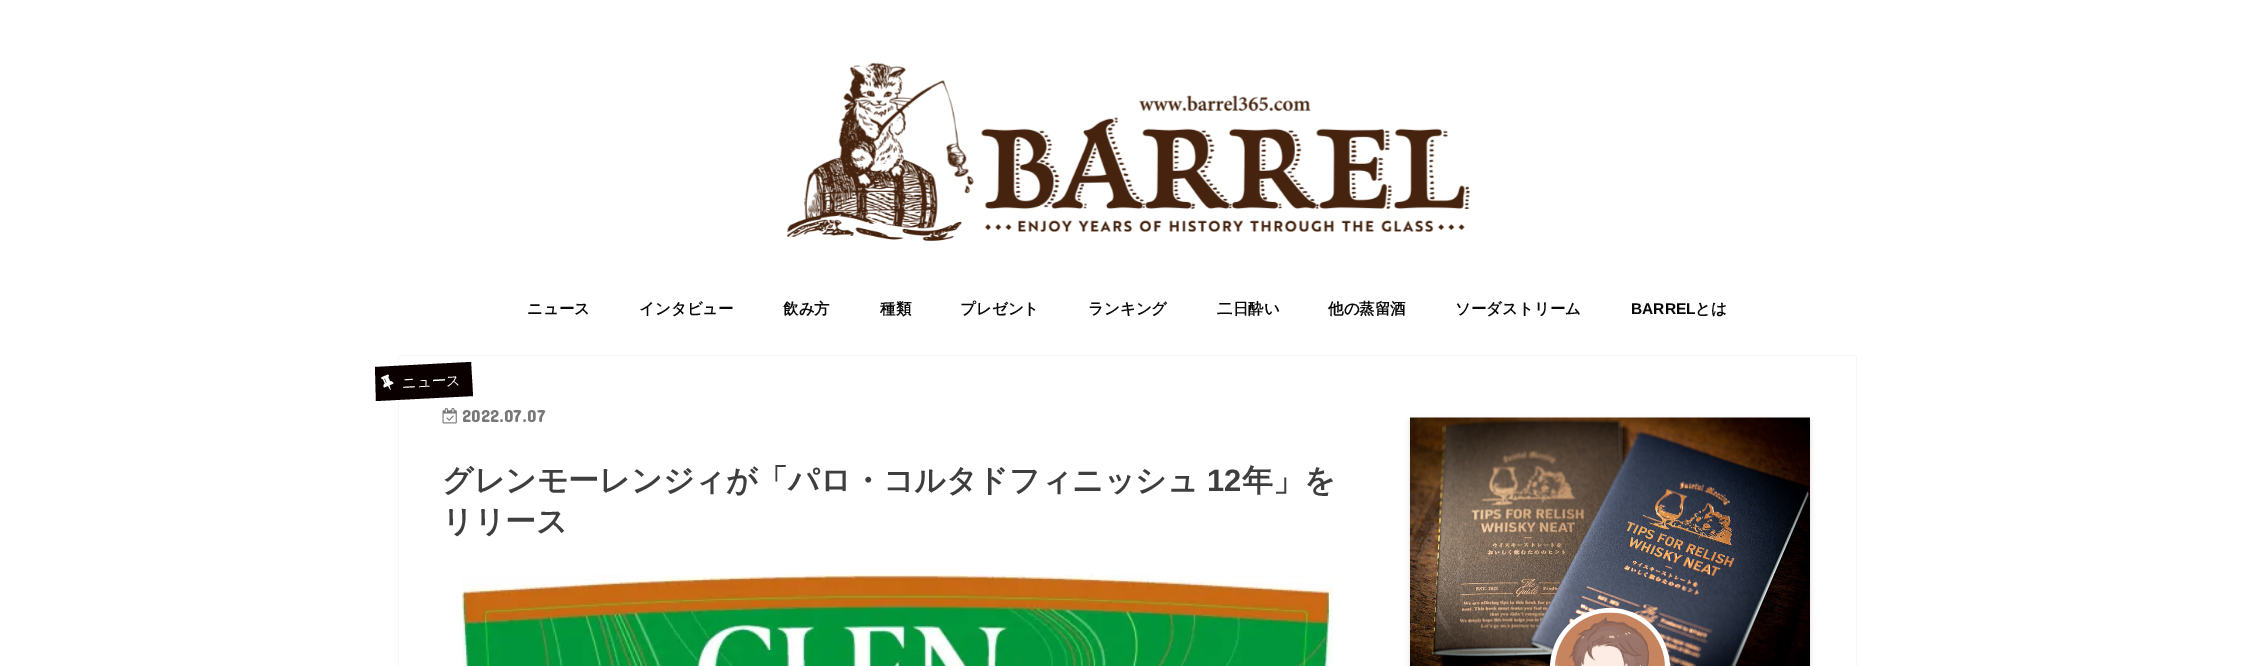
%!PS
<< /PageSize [2253 666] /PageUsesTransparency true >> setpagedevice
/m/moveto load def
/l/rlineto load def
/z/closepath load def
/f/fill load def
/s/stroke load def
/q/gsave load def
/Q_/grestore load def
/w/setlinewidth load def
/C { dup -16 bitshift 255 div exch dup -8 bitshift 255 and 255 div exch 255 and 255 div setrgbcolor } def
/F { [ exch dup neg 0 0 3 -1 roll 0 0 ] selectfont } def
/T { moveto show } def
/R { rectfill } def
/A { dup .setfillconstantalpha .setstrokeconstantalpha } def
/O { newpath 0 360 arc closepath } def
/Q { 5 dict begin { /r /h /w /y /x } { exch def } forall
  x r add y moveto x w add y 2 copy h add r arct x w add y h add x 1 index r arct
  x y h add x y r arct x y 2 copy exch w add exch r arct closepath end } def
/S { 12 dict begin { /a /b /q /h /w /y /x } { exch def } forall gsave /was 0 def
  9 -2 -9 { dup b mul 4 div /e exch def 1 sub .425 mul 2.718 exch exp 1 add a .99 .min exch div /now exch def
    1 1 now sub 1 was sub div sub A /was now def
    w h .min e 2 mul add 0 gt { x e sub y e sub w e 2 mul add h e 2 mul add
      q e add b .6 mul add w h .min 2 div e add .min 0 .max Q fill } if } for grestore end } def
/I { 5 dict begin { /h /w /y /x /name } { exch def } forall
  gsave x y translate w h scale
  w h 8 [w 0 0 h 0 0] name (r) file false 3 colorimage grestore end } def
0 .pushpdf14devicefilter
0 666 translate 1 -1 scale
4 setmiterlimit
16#FFFFFF C
0 0 2253 666 R
(1.rgb) 786 62 684 179 I
/WenQuanYiZenHei-Bold 15.5 F
16#0A0808 C
(ニュース) 527 314 T
(インタビュー) 639 314 T
(飲み方) 783 314 T
(種類) 880 314 T
(プレゼント) 960 314 T
(ランキング) 1088 314 T
(二日酔い) 1217 314 T
(他の蒸留酒) 1328 314 T
(ソーダストリーム) 1455 314 T
/LiberationSans-Bold 15.5 F
(BARREL) 1631 314 T
/WenQuanYiZenHei-Bold 15.5 F
(とは) 1695 314 T
16#DDDDDD C
399 356 1457 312 0 .5 1 S
16#FFFFFF C
399 356 1457 310 R
16#0A0000 C
375 367 m 96 -5 l 2 34 l -97 5 l z f
(2.rgb) 381 374 13 16 I
/WenQuanYiZenHei-Medium 14.5 F
16#FFFFFF C
q 402 388 translate -3 rotate 0 0 m (ニュース) show Q_
(3.rgb) 442 408 15 16 I
/ConcertOne-Regular 17.5 F
16#787878 C
(2022.07.07) 462 422 T
/WenQuanYiZenHei-Bold 30.9 F
16#3E3E3E C
(グレンモーレンジィが「パロ・コルタドフィニッシュ) 442 491 T
/LiberationSans-Bold 30.9 F
(12) 1207 491 T
/WenQuanYiZenHei-Bold 30.9 F
(年」を) 1242 491 T
(リリース) 442 532 T
(4.rgb) 462 575 871 91 I
16#000000 C
1410 420 400 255 0 3 .13 S
(5.rgb) 1410 417 400 249 I
16#FFFFFF C
5 w
1610 668 57.5 O s
(6.rgb) 1555 612 110 54 I
.poppdf14devicefilter showpage
